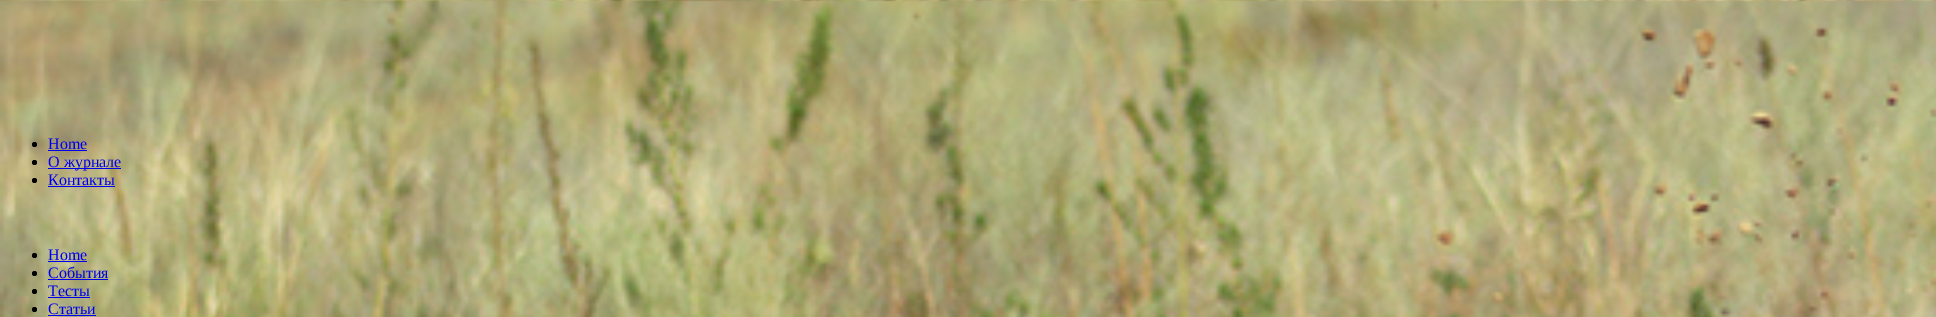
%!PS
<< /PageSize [1936 317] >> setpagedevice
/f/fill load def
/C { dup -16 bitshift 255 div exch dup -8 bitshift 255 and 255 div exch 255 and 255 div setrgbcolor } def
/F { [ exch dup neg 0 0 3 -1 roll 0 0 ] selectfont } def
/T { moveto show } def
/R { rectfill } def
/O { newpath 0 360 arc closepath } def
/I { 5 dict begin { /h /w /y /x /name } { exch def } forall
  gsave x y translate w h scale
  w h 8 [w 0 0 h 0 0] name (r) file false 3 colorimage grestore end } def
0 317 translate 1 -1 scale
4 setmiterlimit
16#FFFFFF C
0 0 1936 317 R
(1.rgb) 0 0 1936 317 I
16#000000 C
34.5 144.5 2.5 O f
/LiberationSerif-Regular 16 F
16#0000EE C
(Home) 48 149 T
48 150 39 1 R
16#000000 C
34.5 162.5 2.5 O f
16#0000EE C
48 168 73 1 R
(О журнале) 48 167 T
16#000000 C
34.5 180.5 2.5 O f
16#0000EE C
(Контакты) 48 185 T
48 186 67 1 R
16#000000 C
34.5 255.5 2.5 O f
16#0000EE C
(Home) 48 260 T
48 261 39 1 R
16#000000 C
34.5 273.5 2.5 O f
16#0000EE C
(События) 48 278 T
48 279 60 1 R
16#000000 C
34.5 291.5 2.5 O f
16#0000EE C
(Тесты) 48 296 T
48 297 42 1 R
16#000000 C
34.5 309.5 2.5 O f
16#0000EE C
(Статьи) 48 314 T
48 315 48 1 R
showpage
